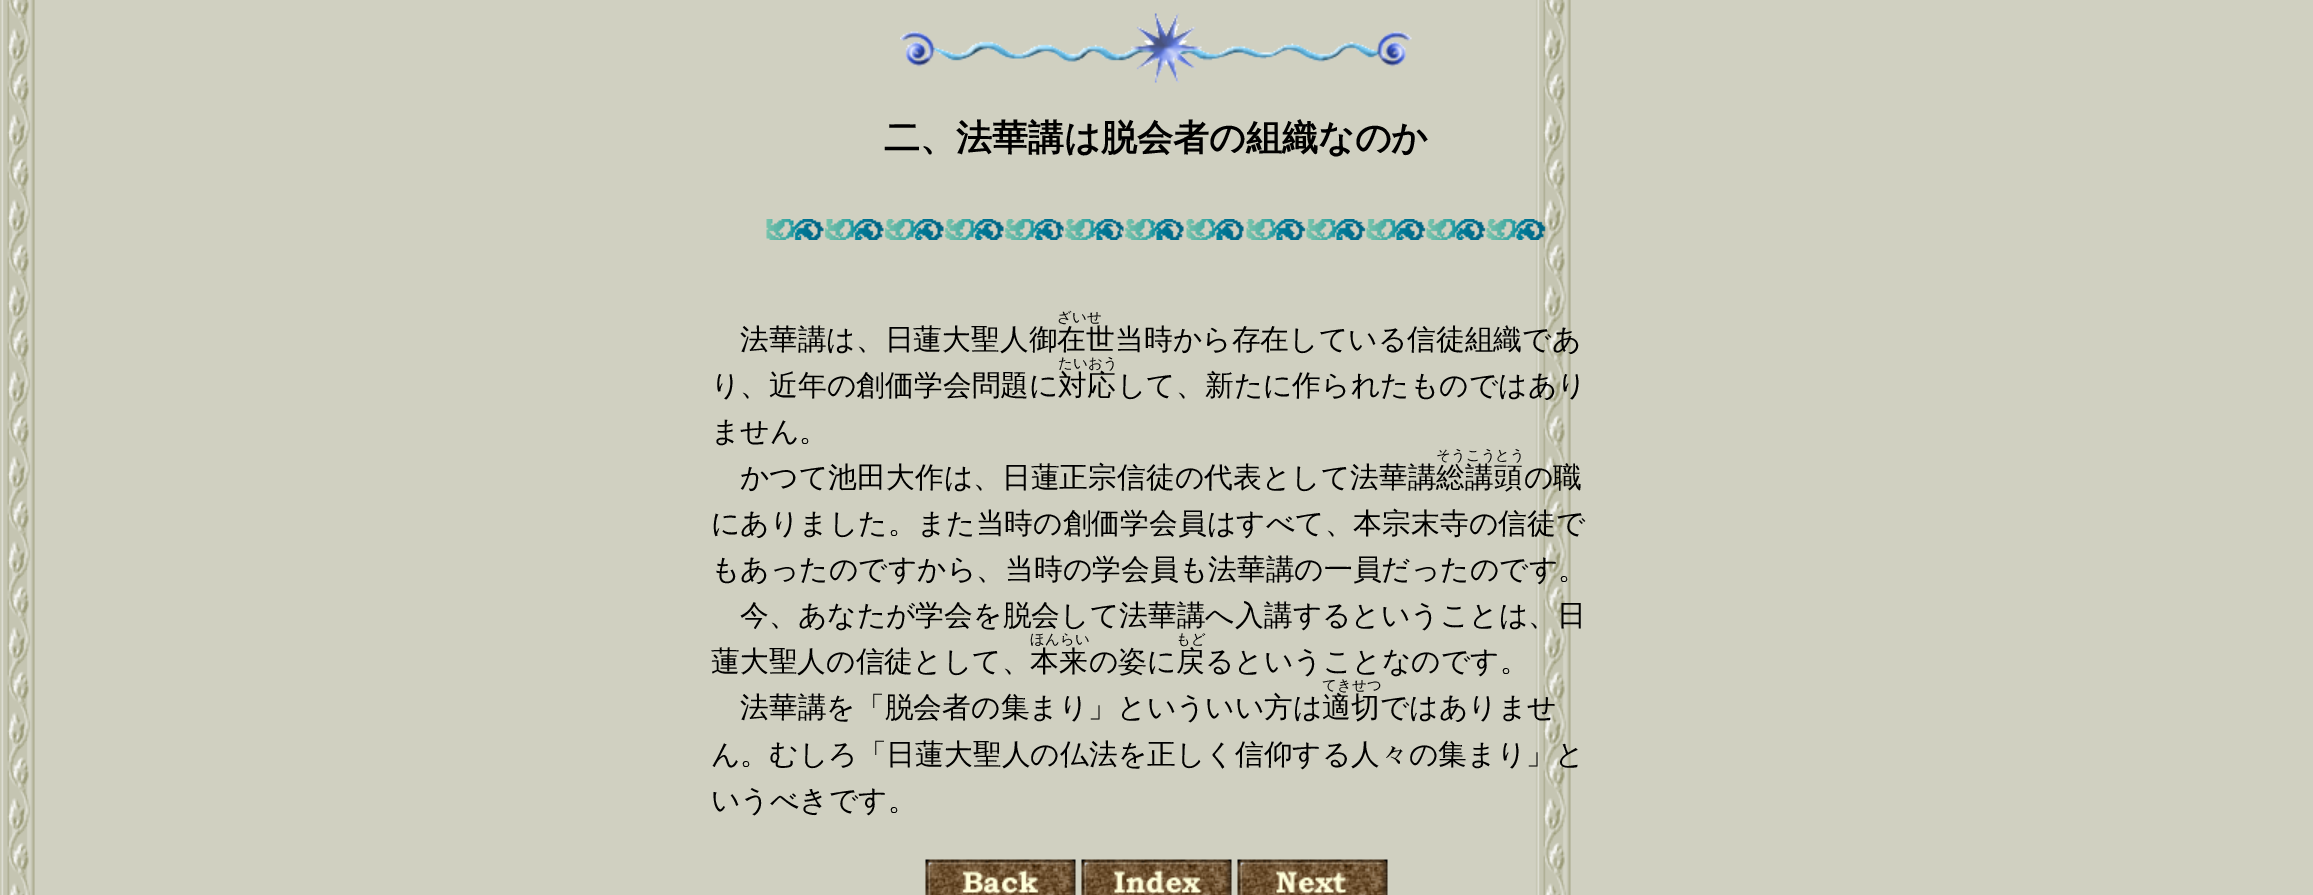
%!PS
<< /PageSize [2313 895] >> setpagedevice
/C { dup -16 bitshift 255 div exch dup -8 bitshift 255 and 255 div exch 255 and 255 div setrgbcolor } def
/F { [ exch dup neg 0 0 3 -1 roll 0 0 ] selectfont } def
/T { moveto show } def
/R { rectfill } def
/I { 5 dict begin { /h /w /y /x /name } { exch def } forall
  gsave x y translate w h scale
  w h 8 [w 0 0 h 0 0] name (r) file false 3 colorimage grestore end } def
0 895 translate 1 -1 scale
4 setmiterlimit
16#FFFFFF C
0 0 2313 895 R
(1.rgb) 0 0 2313 895 I
(2.rgb) 900 13 512 70 I
/WenQuanYiZenHei-Bold 36 F
16#000000 C
(二、法華講は脱会者の組織なのか) 884 150 T
(3.rgb) 766 219 780 21 I
/WenQuanYiZenHei-Medium 14.5 F
(ざいせ) 1057 322 T
/WenQuanYiZenHei-Medium 28.8 F
(法華講は、日蓮大聖人御在世当時から存在している信徒組織であ) 740 349 T
(り、近年の創価学会問題に) 711 395 T
/WenQuanYiZenHei-Medium 14.5 F
(たいおう) 1058 368 T
/WenQuanYiZenHei-Medium 28.8 F
(対応) 1058 395 T
(して、新たに作られたものではあり) 1117 395 T
(ません。) 711 441 T
(かつて池田大作は、日蓮正宗信徒の代表として法華講) 740 487 T
/WenQuanYiZenHei-Medium 14.5 F
(そうこうとう) 1436 460 T
/WenQuanYiZenHei-Medium 28.8 F
(総講頭) 1436 487 T
(の職) 1524 487 T
(にありました。また当時の創価学会員はすべて、本宗末寺の信徒で) 711 533 T
(もあったのですから、当時の学会員も法華講の一員だったのです。) 711 579 T
(今、あなたが学会を脱会して法華講へ入講するということは、日) 740 625 T
(蓮大聖人の信徒として、) 711 671 T
/WenQuanYiZenHei-Medium 14.5 F
(ほんらい) 1030 644 T
/WenQuanYiZenHei-Medium 28.8 F
(本来) 1030 671 T
(の姿に) 1089 671 T
/WenQuanYiZenHei-Medium 14.5 F
(もど) 1176 644 T
/WenQuanYiZenHei-Medium 28.8 F
(戻) 1176 671 T
(るということなのです。) 1205 671 T
(法華講を「脱会者の集まり」といういい方は) 740 717 T
/WenQuanYiZenHei-Medium 14.5 F
(てきせつ) 1322 690 T
/WenQuanYiZenHei-Medium 28.8 F
(適切) 1322 717 T
(ではありませ) 1380 717 T
(ん。むしろ「日蓮大聖人の仏法を正しく信仰する人々の集まり」と) 711 764 T
(いうべきです。) 711 810 T
(4.rgb) 925 859 151 36 I
(5.rgb) 1081 859 151 36 I
(6.rgb) 1237 859 151 36 I
showpage
